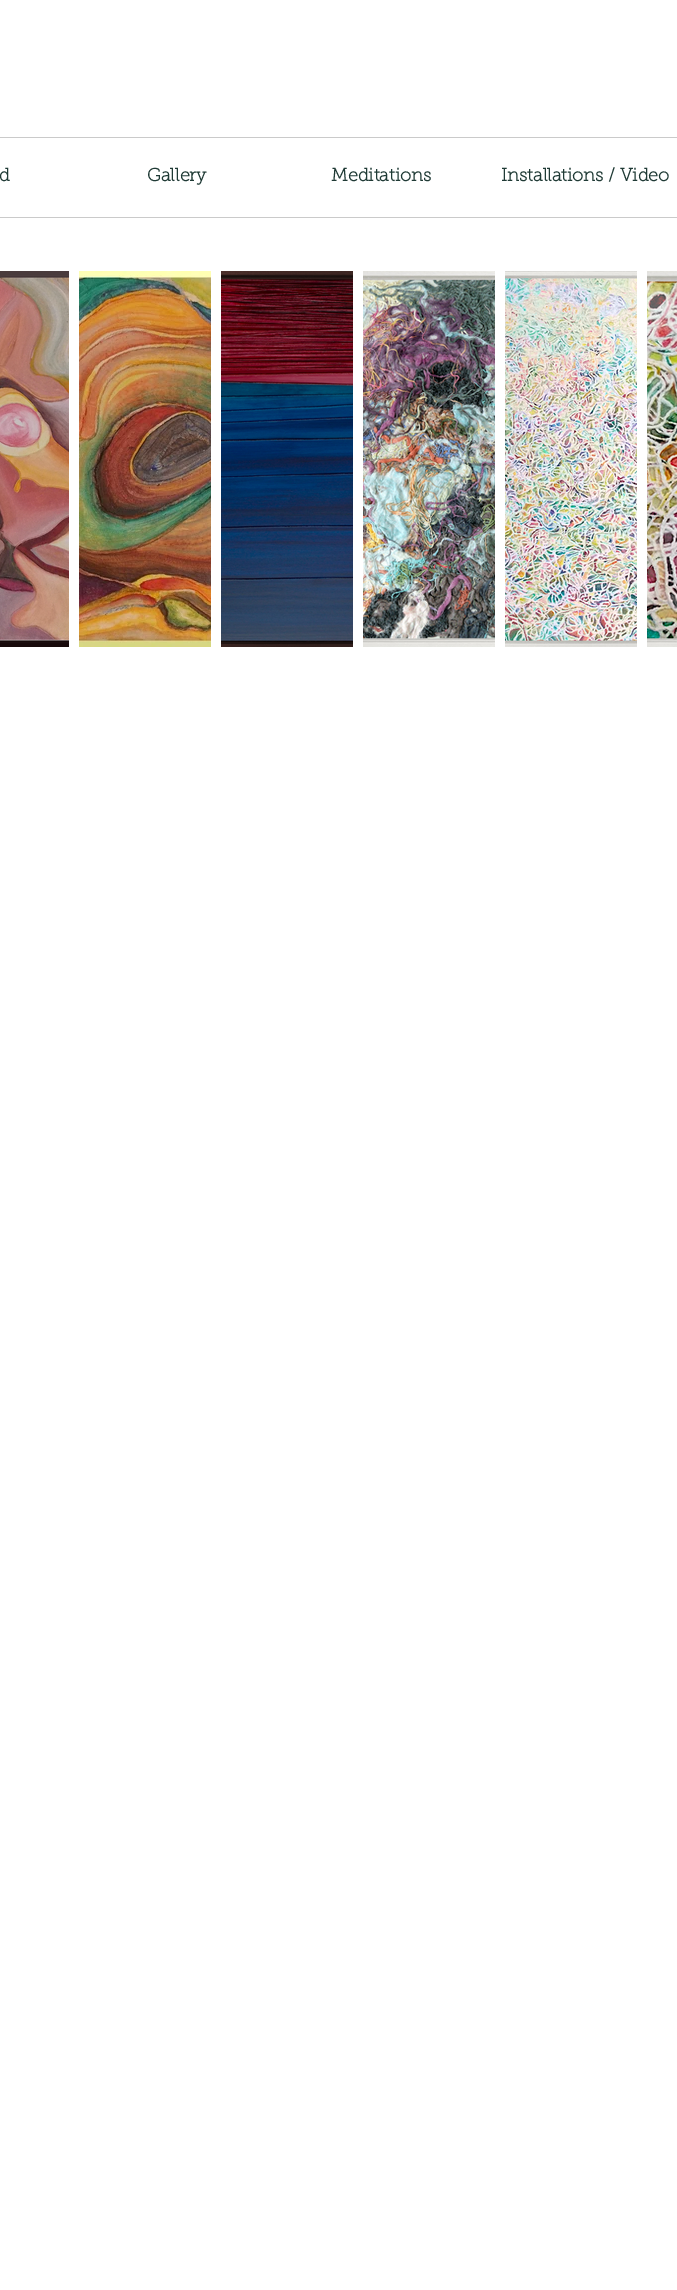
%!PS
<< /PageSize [677 2290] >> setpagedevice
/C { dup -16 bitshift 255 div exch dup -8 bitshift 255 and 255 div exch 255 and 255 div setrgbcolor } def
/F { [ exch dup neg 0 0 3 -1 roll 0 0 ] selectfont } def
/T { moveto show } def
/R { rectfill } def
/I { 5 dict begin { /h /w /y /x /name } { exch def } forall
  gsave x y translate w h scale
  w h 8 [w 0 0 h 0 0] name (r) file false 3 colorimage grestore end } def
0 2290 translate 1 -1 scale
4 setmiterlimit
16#FFFFFF C
0 0 677 2290 R
16#CACACA C
0 137 677 1 R
0 217 677 1 R
/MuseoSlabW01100-Bold 18 F
16#1F3A35 C
(d) -1 181 T
(Gallery) 147 181 T
(Meditations) 331 181 T
(Installations / Video) 501 181 T
(1.rgb) 0 271 69 376 I
(2.rgb) 79 271 132 376 I
(3.rgb) 221 271 132 376 I
(4.rgb) 363 271 132 376 I
(5.rgb) 505 271 132 376 I
(6.rgb) 647 271 30 376 I
showpage
